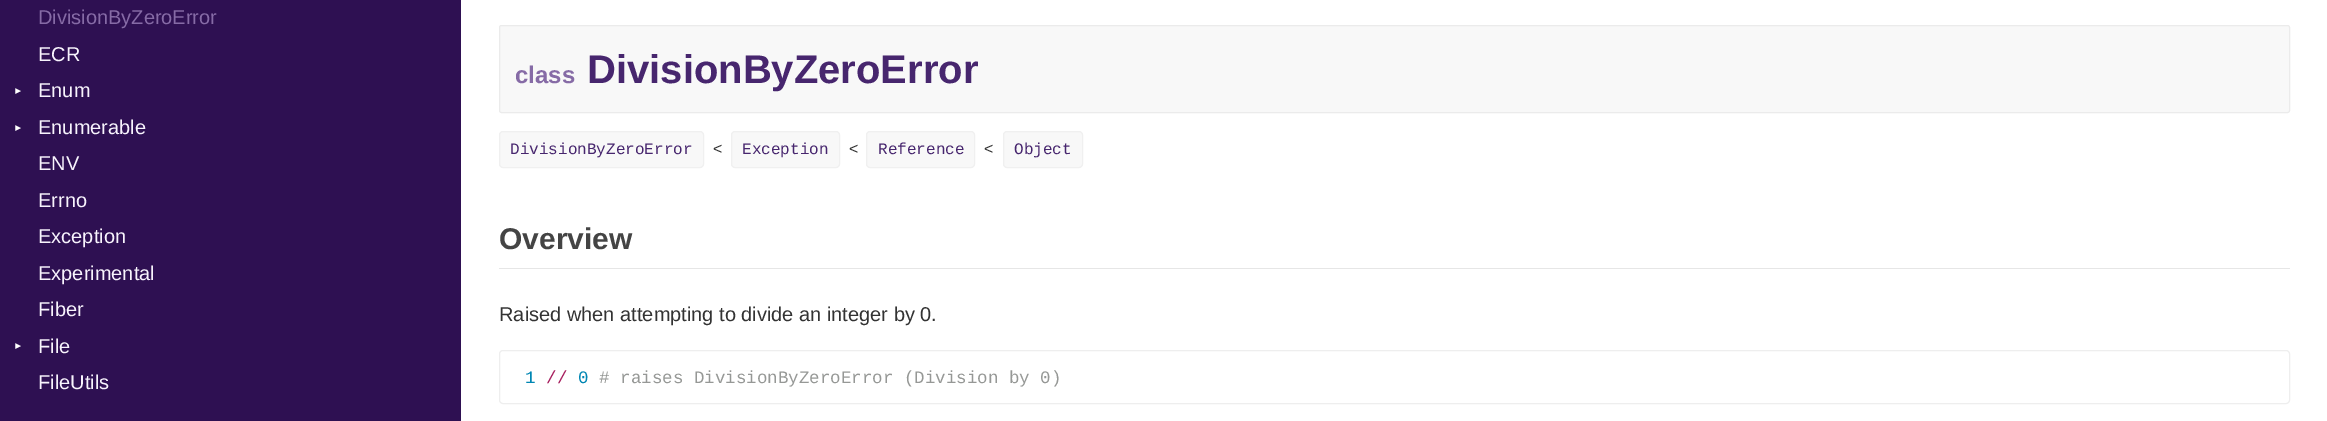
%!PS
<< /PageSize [2327 421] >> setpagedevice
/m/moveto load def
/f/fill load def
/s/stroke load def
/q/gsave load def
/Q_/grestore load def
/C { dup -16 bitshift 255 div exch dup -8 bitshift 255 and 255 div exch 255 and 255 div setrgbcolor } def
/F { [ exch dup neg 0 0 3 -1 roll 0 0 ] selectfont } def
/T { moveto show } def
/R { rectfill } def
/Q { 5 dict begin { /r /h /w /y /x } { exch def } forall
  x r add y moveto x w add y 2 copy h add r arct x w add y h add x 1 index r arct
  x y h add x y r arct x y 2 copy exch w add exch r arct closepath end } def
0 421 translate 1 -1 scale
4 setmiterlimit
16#FFFFFF C
0 0 2327 421 R
16#2E1052 C
0 0 461 421 R
/LiberationSans-Regular 20 F
16#866BA6 C
(DivisionByZeroError) 38 24 T
16#F8F4FD C
(ECR) 38 61 T
/LiberationSans-Regular 10 F
16#FFFFFF C
q 21 96 translate -90 rotate 0 0 m (▼) show Q_
/LiberationSans-Regular 20 F
16#F8F4FD C
(Enum) 38 97 T
/LiberationSans-Regular 10 F
16#FFFFFF C
q 21 133 translate -90 rotate 0 0 m (▼) show Q_
/LiberationSans-Regular 20 F
16#F8F4FD C
(Enumerable) 38 134 T
(ENV) 38 170 T
(Errno) 38 207 T
(Exception) 38 243 T
(Experimental) 38 280 T
(Fiber) 38 316 T
/LiberationSans-Regular 10 F
16#FFFFFF C
q 21 351 translate -90 rotate 0 0 m (▼) show Q_
/LiberationSans-Regular 20 F
16#F8F4FD C
(File) 38 353 T
(FileUtils) 38 389 T
16#F8F8F8 C
499.5 25.5 1790 87 2 Q q f Q_
16#EBEBEB C
s
/LiberationSans-Bold 24 F
16#866BA6 C
(class) 515 83 T
/LiberationSans-Bold 40 F
16#47266E C
(DivisionByZeroError) 587 83 T
16#F8F8F8 C
499.5 131.5 204 36 3.5 Q q f Q_
16#F0F0F0 C
s
/LiberationMono-Regular 16 F
16#47266E C
(DivisionByZeroError) 510 154 T
/LiberationSans-Regular 16 F
16#333333 C
(<) 713 154 T
16#F8F8F8 C
731.5 131.5 108 36 3.5 Q q f Q_
16#F0F0F0 C
s
/LiberationMono-Regular 16 F
16#47266E C
(Exception) 742 154 T
/LiberationSans-Regular 16 F
16#333333 C
(<) 849 154 T
16#F8F8F8 C
866.5 131.5 108 36 3.5 Q q f Q_
16#F0F0F0 C
s
/LiberationMono-Regular 16 F
16#47266E C
(Reference) 878 154 T
/LiberationSans-Regular 16 F
16#333333 C
(<) 984 154 T
16#F8F8F8 C
1003.5 131.5 79 36 3.5 Q q f Q_
16#F0F0F0 C
s
/LiberationMono-Regular 16 F
16#47266E C
(Object) 1014 154 T
16#E6E6E6 C
499 268 1791 1 R
/LiberationSans-Bold 30 F
16#444444 C
(Overview) 499 249 T
/LiberationSans-Regular 20 F
16#333333 C
(Raised when attempting to divide an integer by 0.) 499 321 T
16#EEEEEE C
499.5 350.5 1790 53 3.5 Q s
/LiberationMono-Regular 17.5 F
16#0086B3 C
(1) 525 383 T
16#A71D5D C
(//) 546 383 T
16#0086B3 C
(0) 578 383 T
16#969896 C
(# raises DivisionByZeroError \(Division by 0\)) 599 383 T
showpage
